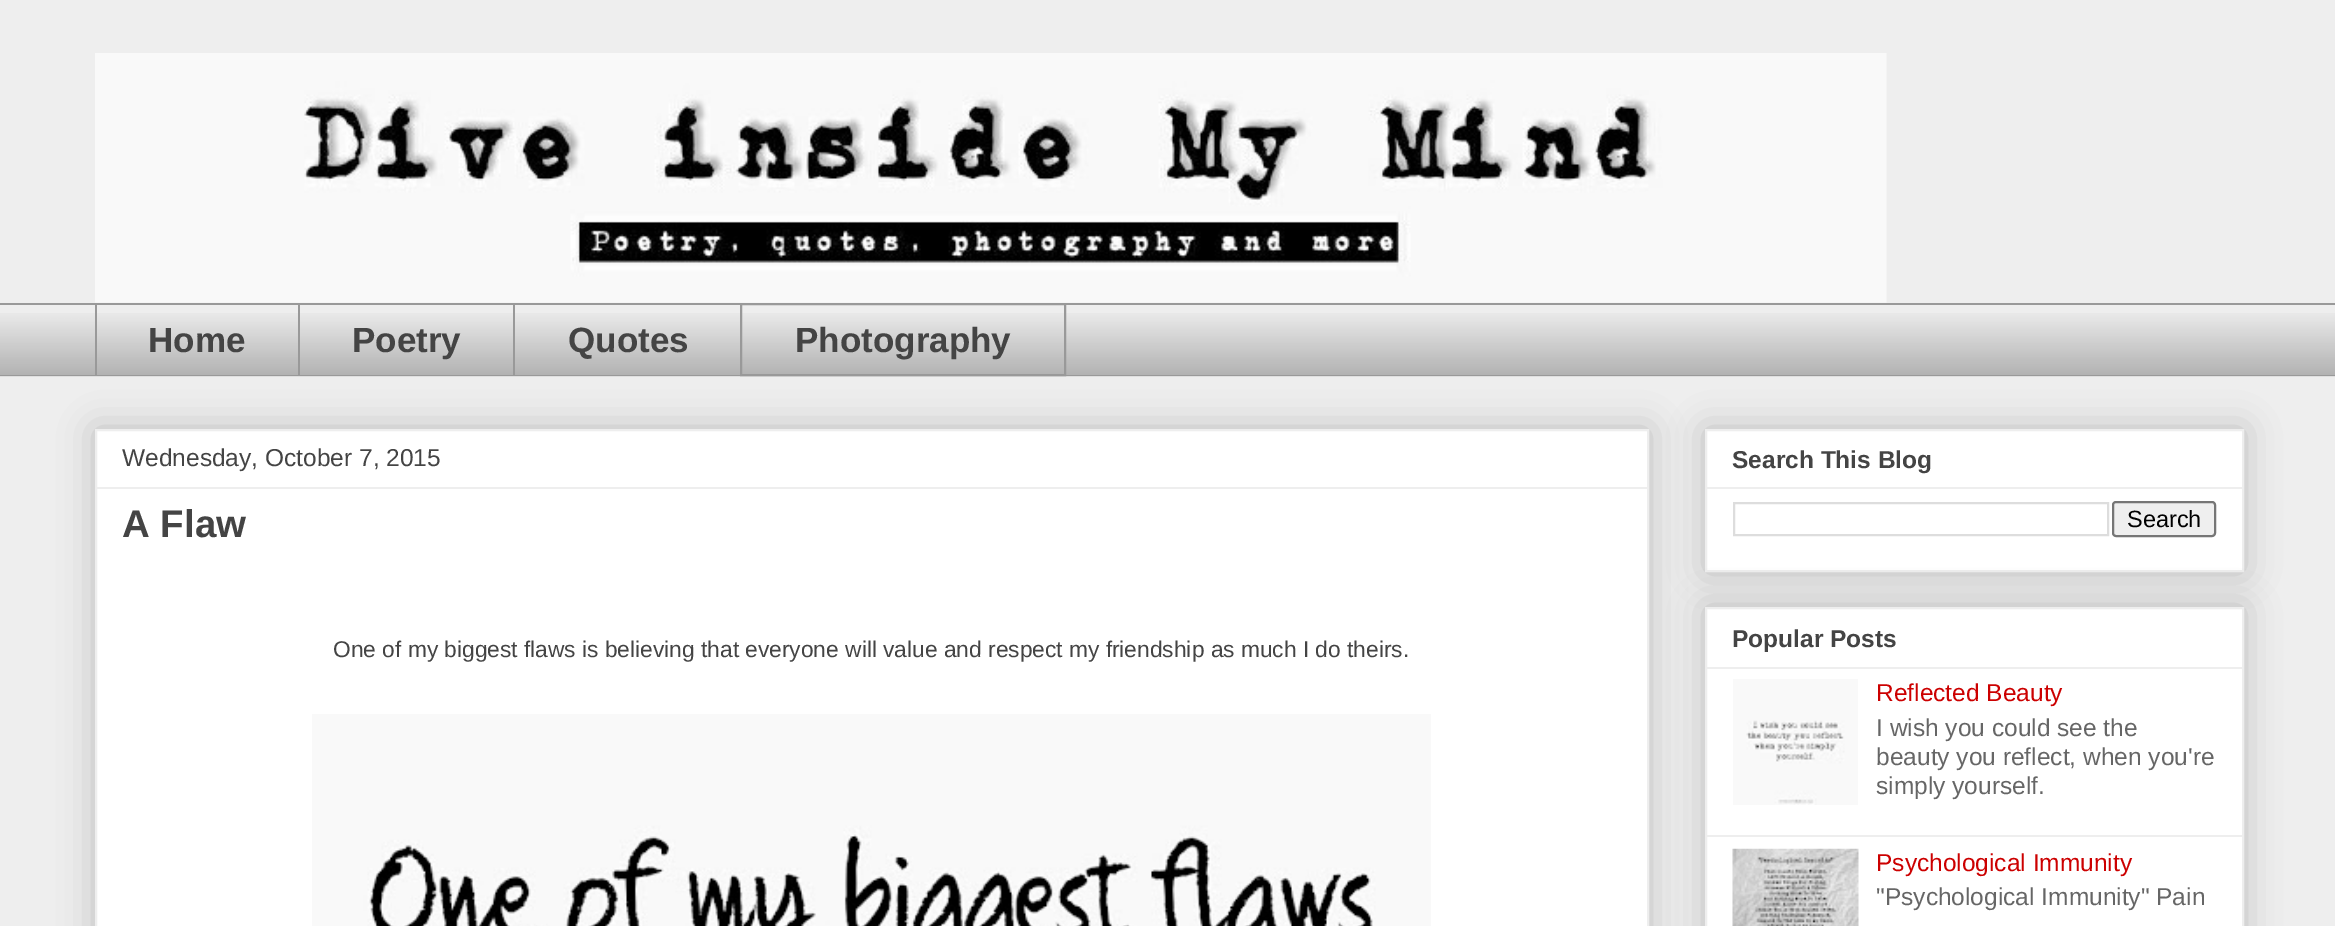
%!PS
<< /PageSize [2335 926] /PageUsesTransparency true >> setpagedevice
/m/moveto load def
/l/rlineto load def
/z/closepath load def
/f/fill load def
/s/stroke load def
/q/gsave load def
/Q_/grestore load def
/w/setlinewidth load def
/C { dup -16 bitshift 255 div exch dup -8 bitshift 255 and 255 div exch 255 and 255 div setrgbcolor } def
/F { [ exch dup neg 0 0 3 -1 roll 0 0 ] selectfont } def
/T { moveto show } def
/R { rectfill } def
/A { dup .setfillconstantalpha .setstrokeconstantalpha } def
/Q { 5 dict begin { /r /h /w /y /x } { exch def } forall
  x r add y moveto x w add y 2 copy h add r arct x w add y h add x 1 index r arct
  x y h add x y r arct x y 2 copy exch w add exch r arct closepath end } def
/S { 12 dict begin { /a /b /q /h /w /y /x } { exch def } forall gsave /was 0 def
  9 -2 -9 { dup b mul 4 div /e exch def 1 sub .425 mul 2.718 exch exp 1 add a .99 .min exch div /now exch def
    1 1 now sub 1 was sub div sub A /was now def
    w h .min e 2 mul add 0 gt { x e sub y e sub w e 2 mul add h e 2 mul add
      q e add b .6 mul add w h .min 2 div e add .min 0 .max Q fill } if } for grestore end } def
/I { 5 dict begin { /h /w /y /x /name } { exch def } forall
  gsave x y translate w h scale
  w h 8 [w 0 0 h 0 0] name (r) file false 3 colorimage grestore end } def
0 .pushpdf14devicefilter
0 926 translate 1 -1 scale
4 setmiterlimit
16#EEEEEE C
0 0 2335 926 R
(1.rgb) 95 53 1792 250 I
(2.rgb) 0 313 2335 64 I
16#999999 C
0 303 2335 2 R
95 303 2 73 R
/LiberationSans-Bold 35 F
16#444444 C
(Home) 148 352 T
16#999999 C
298 303 2 73 R
16#444444 C
(Poetry) 352 352 T
16#999999 C
513 303 2 73 R
16#444444 C
(Quotes) 568 352 T
16#999999 C
2 w
741 304 324 71 rectstroke
16#444444 C
(Photography) 795 352 T
16#999999 C
0 375 2335 1 R
16#000000 C
95 429 1554 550 0 17.5 .2 S
16#FFFFFF C
96 430 m 1552 0 l 0 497 l -1552 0 l z q f Q_
16#EEEEEE C
s
/LiberationSans-Regular 24.5 F
16#444444 C
(Wednesday, October 7, 2015) 122 466 T
16#EEEEEE C
96 487 1551 2 R
/LiberationSans-Bold 38.5 F
16#444444 C
(A Flaw) 122 537 T
/LiberationSans-Regular 22.75 F
(One of my biggest flaws is believing that everyone will value and respect my friendship as much I do theirs.) 333 657 T
(3.rgb) 312 714 1119 212 I
16#000000 C
1705 429 539 143 0 17.5 .2 S
16#FFFFFF C
1706 430 m 537 0 l 0 141 l -537 0 l z q f Q_
16#EEEEEE C
s
/LiberationSans-Bold 24.5 F
16#444444 C
(Search This Blog) 1732 468 T
16#EEEEEE C
1706 487 536 2 R
16#DDDDDD C
1734 503 374 32 rectstroke
16#EFEFEF C
2113 502 102 34 3 Q q f Q_
16#767676 C
s
/LiberationSans-Regular 23.5 F
16#000000 C
(Search) 2127 527 T
1705 607 539 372 0 17.5 .2 S
16#FFFFFF C
1706 608 m 537 0 l 0 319 l -537 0 l z q f Q_
16#EEEEEE C
s
/LiberationSans-Bold 24.5 F
16#444444 C
(Popular Posts) 1732 647 T
16#EEEEEE C
1706 667 536 2 R
(4.rgb) 1733 679 125 126 I
/LiberationSans-Regular 24.5 F
16#CC0000 C
(Reflected Beauty) 1876 701 T
16#666666 C
(I wish you could see the) 1876 736 T
(beauty you reflect, when you're) 1876 765 T
(simply yourself.) 1876 794 T
16#EEEEEE C
1706 835 536 2 R
(5.rgb) 1732 848 127 78 I
16#CC0000 C
(Psychological Immunity) 1876 871 T
16#666666 C
("Psychological Immunity" Pain) 1876 905 T
.poppdf14devicefilter showpage
